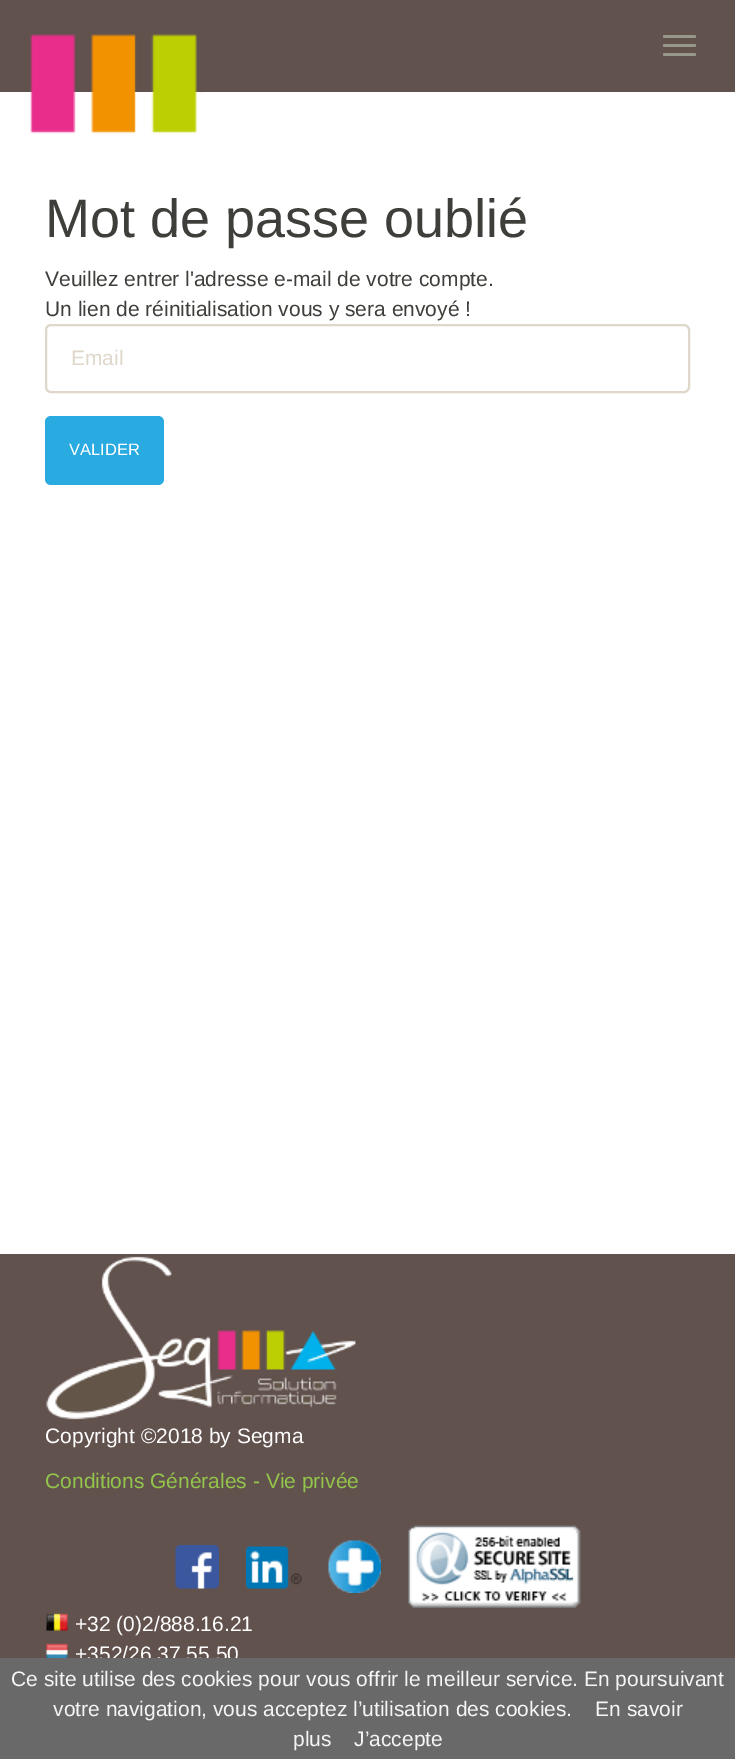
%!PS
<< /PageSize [735 1759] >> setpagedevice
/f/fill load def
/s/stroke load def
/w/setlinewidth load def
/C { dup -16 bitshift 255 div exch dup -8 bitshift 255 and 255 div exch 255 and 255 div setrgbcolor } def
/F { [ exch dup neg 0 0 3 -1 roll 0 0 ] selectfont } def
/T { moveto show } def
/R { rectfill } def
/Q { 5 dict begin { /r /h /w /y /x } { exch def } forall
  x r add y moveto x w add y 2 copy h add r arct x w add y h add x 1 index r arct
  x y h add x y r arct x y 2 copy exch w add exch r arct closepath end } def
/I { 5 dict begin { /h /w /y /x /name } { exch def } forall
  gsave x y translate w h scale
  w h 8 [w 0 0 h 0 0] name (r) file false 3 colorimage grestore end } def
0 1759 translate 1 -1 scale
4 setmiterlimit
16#FFFFFF C
0 0 735 1759 R
16#62524E C
0 0 735 92 R
(1.rgb) 29 34 174 100 I
16#98978B C
663 35 33 3 1.5 Q f
663 44 33 3 1.5 Q f
663 53 33 3 1.5 Q f
/LiberationSans-Regular 54 F
16#3E3F3A C
(Mot de passe oublié) 45 237 T
/LiberationSans-Regular 21 F
(Veuillez entrer l'adresse e-mail de votre compte.) 45 286 T
(Un lien de réinitialisation vous y sera envoyé !) 45 316 T
16#DFD7CA C
2 w
46 325 643 67 5 Q s
(Email) 71 365 T
16#29ABE2 C
45 416 119 69 6 Q f
/LiberationSans-Regular 16.5 F
16#FFFFFF C
(VALIDER) 69 455 T
16#62524E C
0 1254 735 404 R
(2.rgb) 46 1255 311 166 I
/LiberationSans-Regular 21 F
16#FFFFFF C
(Copyright ©2018 by Segma) 45 1443 T
16#93C54B C
(Conditions Générales - Vie privée) 45 1488 T
(3.rgb) 175 1545 44 44 I
(4.rgb) 246 1546 56 43 I
(5.rgb) 328 1540 53 53 I
(6.rgb) 408 1525 173 83 I
(7.rgb) 46 1613 22 18 I
16#FFFFFF C
(+32 \(0\)2/888.16.21) 75 1631 T
(8.rgb) 46 1643 22 15 I
(+352/26.37.55.50) 75 1661 T
16#696969 C
0 1658 735 101 R
16#F5F5F5 C
(Ce site utilise des cookies pour vous offrir le meilleur service. En poursuivant) 11 1686 T
(votre navigation, vous acceptez l’utilisation des cookies.) 53 1716 T
(En savoir) 595 1716 T
(plus) 293 1746 T
(J’accepte) 354 1746 T
showpage
